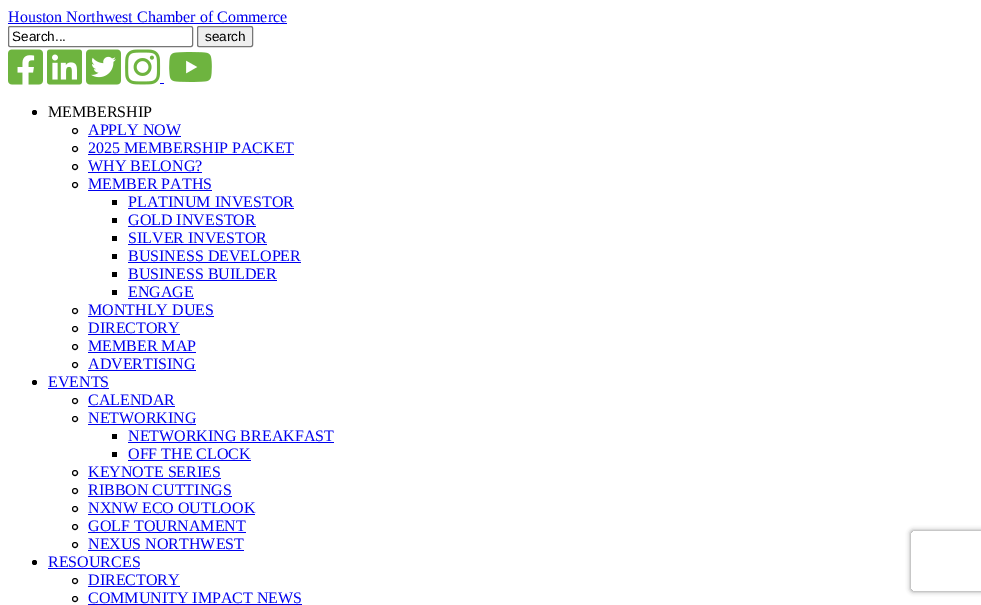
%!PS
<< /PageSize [981 605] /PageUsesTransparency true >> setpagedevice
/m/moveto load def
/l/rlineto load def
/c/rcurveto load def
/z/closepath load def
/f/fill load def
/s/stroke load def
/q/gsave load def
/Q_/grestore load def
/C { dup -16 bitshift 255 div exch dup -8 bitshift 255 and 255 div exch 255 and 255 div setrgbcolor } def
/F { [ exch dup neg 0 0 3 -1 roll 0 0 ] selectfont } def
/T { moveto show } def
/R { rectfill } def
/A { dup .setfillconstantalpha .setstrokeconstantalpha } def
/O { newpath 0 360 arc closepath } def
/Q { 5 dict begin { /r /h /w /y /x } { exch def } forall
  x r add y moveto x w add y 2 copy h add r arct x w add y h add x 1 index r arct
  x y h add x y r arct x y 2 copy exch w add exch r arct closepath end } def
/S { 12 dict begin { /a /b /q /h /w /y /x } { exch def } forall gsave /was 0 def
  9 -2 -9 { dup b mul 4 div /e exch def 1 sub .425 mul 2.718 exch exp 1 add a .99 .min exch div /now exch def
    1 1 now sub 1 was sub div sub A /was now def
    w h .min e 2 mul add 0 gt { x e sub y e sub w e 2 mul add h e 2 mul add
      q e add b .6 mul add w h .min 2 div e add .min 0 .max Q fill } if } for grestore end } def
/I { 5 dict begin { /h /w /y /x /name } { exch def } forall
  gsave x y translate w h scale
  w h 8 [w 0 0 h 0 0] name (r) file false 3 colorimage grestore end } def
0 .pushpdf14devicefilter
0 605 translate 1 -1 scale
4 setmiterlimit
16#FFFFFF C
0 0 981 605 R
/LiberationSerif-Regular 16 F
16#0000EE C
(Houston Northwest Chamber of Commerce) 8 22 T
8 23 279 1 R
16#767676 C
8.5 26.5 184 20 1.5 Q s
/LiberationSans-Regular 13.5 F
16#000000 C
(Search...) 12 41 T
16#EFEFEF C
197.5 26.5 55 20 1.5 Q q f Q_
16#767676 C
s
16#000000 C
(search) 205 41 T
(1.rgb) 8 49 35 36 I
(2.rgb) 47 49 35 36 I
(3.rgb) 86 49 35 36 I
(4.rgb) 125 49 36 36 I
16#0000EE C
160 83 4 1 R
(5.rgb) 169 52 43 30 I
16#000000 C
34.5 112.5 2.5 O f
/LiberationSerif-Regular 16 F
(MEMBERSHIP) 48 117 T
75 131 2.5 O s
16#0000EE C
(APPLY NOW) 88 135 T
88 136 93 1 R
16#000000 C
75 149 2.5 O s
16#0000EE C
(2025 MEMBERSHIP PACKET) 88 153 T
88 154 206 1 R
16#000000 C
75 167 2.5 O s
16#0000EE C
(WHY BELONG?) 88 171 T
88 172 114 1 R
16#000000 C
75 185 2.5 O s
16#0000EE C
(MEMBER PATHS) 88 189 T
88 190 124 1 R
16#000000 C
112 200 5 5 R
16#0000EE C
(PLATINUM INVESTOR) 128 207 T
128 208 166 1 R
16#000000 C
112 218 5 5 R
16#0000EE C
(GOLD INVESTOR) 128 225 T
128 226 128 1 R
16#000000 C
112 236 5 5 R
16#0000EE C
(SILVER INVESTOR) 128 243 T
128 244 139 1 R
16#000000 C
112 254 5 5 R
16#0000EE C
(BUSINESS DEVELOPER) 128 261 T
128 262 173 1 R
16#000000 C
112 272 5 5 R
16#0000EE C
(BUSINESS BUILDER) 128 279 T
128 280 149 1 R
16#000000 C
112 290 5 5 R
16#0000EE C
(ENGAGE) 128 297 T
128 298 66 1 R
16#000000 C
75 311 2.5 O s
16#0000EE C
(MONTHLY DUES) 88 315 T
88 316 126 1 R
16#000000 C
75 329 2.5 O s
16#0000EE C
(DIRECTORY) 88 333 T
88 334 92 1 R
16#000000 C
75 347 2.5 O s
16#0000EE C
(MEMBER MAP) 88 351 T
88 352 108 1 R
16#000000 C
75 365 2.5 O s
16#0000EE C
(ADVERTISING) 88 369 T
88 370 108 1 R
16#000000 C
34.5 382.5 2.5 O f
16#0000EE C
(EVENTS) 48 387 T
48 388 61 1 R
16#000000 C
75 401 2.5 O s
16#0000EE C
(CALENDAR) 88 405 T
88 406 87 1 R
16#000000 C
75 419 2.5 O s
16#0000EE C
(NETWORKING) 88 423 T
88 424 108 1 R
16#000000 C
112 434 5 5 R
16#0000EE C
(NETWORKING BREAKFAST) 128 441 T
128 442 206 1 R
16#000000 C
112 452 5 5 R
16#0000EE C
(OFF THE CLOCK) 128 459 T
128 460 123 1 R
16#000000 C
75 473 2.5 O s
16#0000EE C
(KEYNOTE SERIES) 88 477 T
88 478 133 1 R
16#000000 C
75 491 2.5 O s
16#0000EE C
(RIBBON CUTTINGS) 88 495 T
88 496 144 1 R
16#000000 C
75 509 2.5 O s
16#0000EE C
(NXNW ECO OUTLOOK) 88 513 T
88 514 167 1 R
16#000000 C
75 527 2.5 O s
16#0000EE C
(GOLF TOURNAMENT) 88 531 T
88 532 158 1 R
16#000000 C
75 545 2.5 O s
16#0000EE C
(NEXUS NORTHWEST) 88 549 T
88 550 156 1 R
16#000000 C
34.5 562.5 2.5 O f
16#0000EE C
(RESOURCES) 48 567 T
48 568 92 1 R
16#000000 C
75 581 2.5 O s
16#0000EE C
(DIRECTORY) 88 585 T
88 586 92 1 R
16#000000 C
75 599 2.5 O s
16#0000EE C
(COMMUNITY IMPACT NEWS) 88 603 T
88 604 214 1 R
q
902 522 m 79 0 l 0 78 l -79 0 l z 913 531 m 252 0 l 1 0 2 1 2 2 c 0 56 l 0 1 -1 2 -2 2 c -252 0 l -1 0 -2 -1 -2 -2 c 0 -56 l 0 -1 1 -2 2 -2 c z eoclip newpath
16#808080 C
911 531 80 60 2 2.5 1 S
Q_
.poppdf14devicefilter showpage
